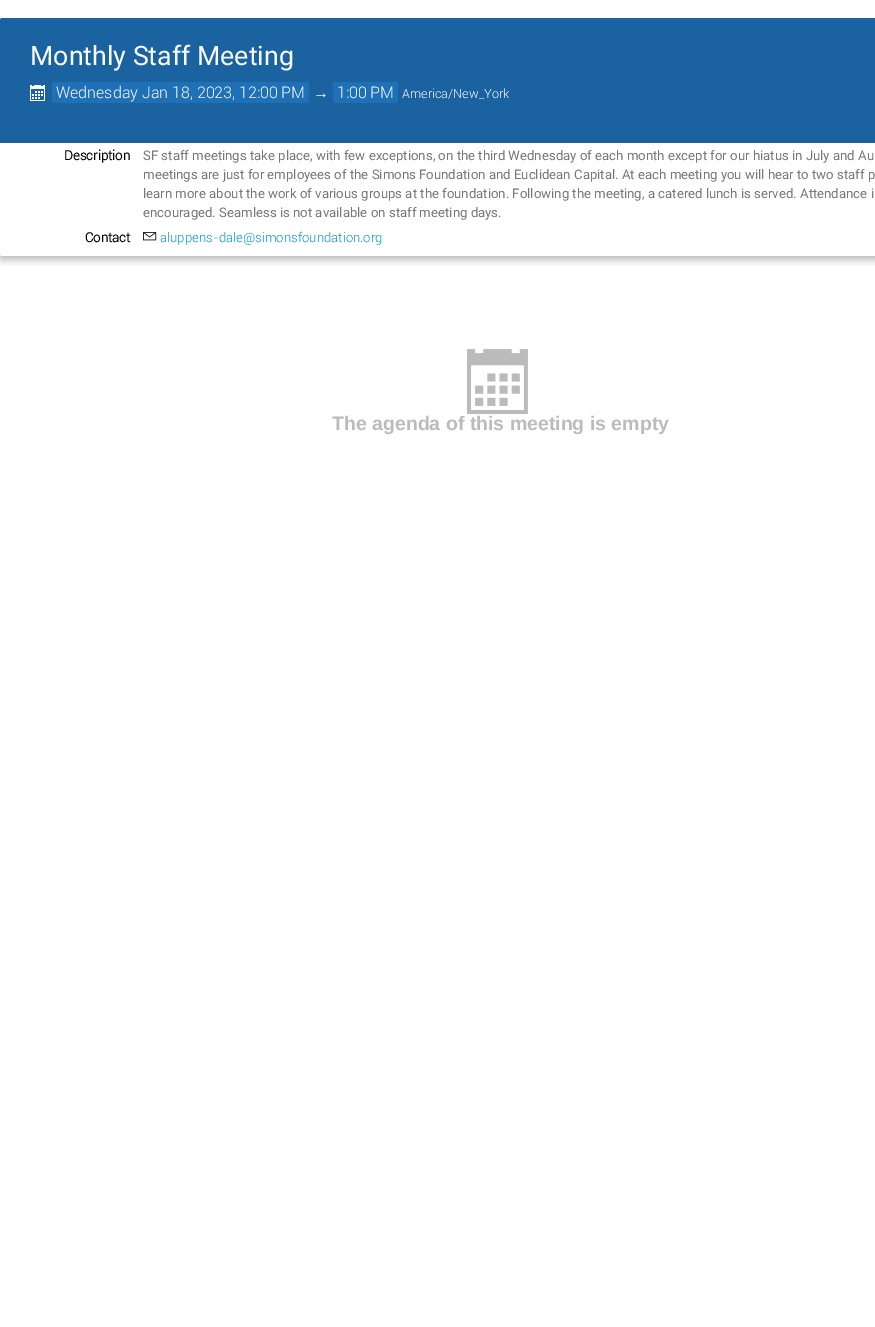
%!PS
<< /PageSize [875 1327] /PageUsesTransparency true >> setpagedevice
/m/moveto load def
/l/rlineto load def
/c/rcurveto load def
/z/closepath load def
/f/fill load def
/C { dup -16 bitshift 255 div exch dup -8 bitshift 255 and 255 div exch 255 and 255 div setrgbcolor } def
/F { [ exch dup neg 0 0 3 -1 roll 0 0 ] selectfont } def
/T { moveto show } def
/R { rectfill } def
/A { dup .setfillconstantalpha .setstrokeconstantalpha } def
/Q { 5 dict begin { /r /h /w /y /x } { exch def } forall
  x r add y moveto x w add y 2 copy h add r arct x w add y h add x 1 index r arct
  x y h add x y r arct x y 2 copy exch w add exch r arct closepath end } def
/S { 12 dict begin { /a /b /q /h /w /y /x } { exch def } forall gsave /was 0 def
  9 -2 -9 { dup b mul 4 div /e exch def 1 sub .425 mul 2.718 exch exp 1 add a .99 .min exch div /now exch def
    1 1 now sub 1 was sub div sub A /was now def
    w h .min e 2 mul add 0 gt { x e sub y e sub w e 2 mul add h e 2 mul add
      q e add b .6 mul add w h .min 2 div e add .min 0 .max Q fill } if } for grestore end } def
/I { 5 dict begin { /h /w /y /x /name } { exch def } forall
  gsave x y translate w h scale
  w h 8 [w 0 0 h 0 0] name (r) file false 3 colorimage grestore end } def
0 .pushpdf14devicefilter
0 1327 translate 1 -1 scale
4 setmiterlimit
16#FFFFFF C
0 0 875 1327 R
16#323232 C
-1 144 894 115 3 5 .4 S
16#1A63A0 C
2 18 m 873 0 l 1 0 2 1 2 2 c 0 123 l -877 0 l 0 -123 l 0 -1 1 -2 2 -2 c z f
/Roboto-Regular 26.75 F
16#F9F9F9 C
(Monthly Staff Meeting) 30 65 T
(1.rgb) 30 85 15 16 I
16#1E71B6 C
52 82 257 21 2 Q f
/Roboto-Light 16 F
16#F9F9F9 C
(Wednesday Jan 18, 2023, 12:00 PM) 56 98 T
/LiberationSans-Regular 16 F
(→) 313 98 T
16#1E71B6 C
333 82 65 21 2 Q f
/Roboto-Light 16 F
16#F9F9F9 C
(1:00 PM) 337 98 T
/Roboto-Light 12.75 F
(America/New_York) 402 98 T
16#FFFFFF C
0 143 m 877 0 l 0 111 l 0 1 -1 2 -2 2 c -873 0 l -1 0 -2 -1 -2 -2 c z f
/Roboto-Bold 13.2 F
16#000000 C
(Description) 64 160 T
/Roboto-Regular 13.2 F
16#777777 C
(SF staff meetings take place, with few exceptions, on the third Wednesday of each month except for our hiatus in July and Au) 143 160 T
(meetings are just for employees of the Simons Foundation and Euclidean Capital. At each meeting you will hear to two staff p) 143 179 T
(learn more about the work of various groups at the foundation. Following the meeting, a catered lunch is served. Attendance i) 143 198 T
(encouraged. Seamless is not available on staff meeting days.) 143 217 T
/Roboto-Bold 13.2 F
16#000000 C
(Contact) 85 242 T
(2.rgb) 143 232 14 9 I
/Roboto-Light 13.2 F
16#0099CC C
(aluppens-dale@simonsfoundation.org) 160 242 T
16#FFFFFF C
0 266 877 250 2 Q f
(3.rgb) 467 349 61 66 I
/LiberationSans-Bold 19.5 F
16#BBBBBB C
(The agenda of this meeting is empty) 332 430 T
.poppdf14devicefilter showpage
